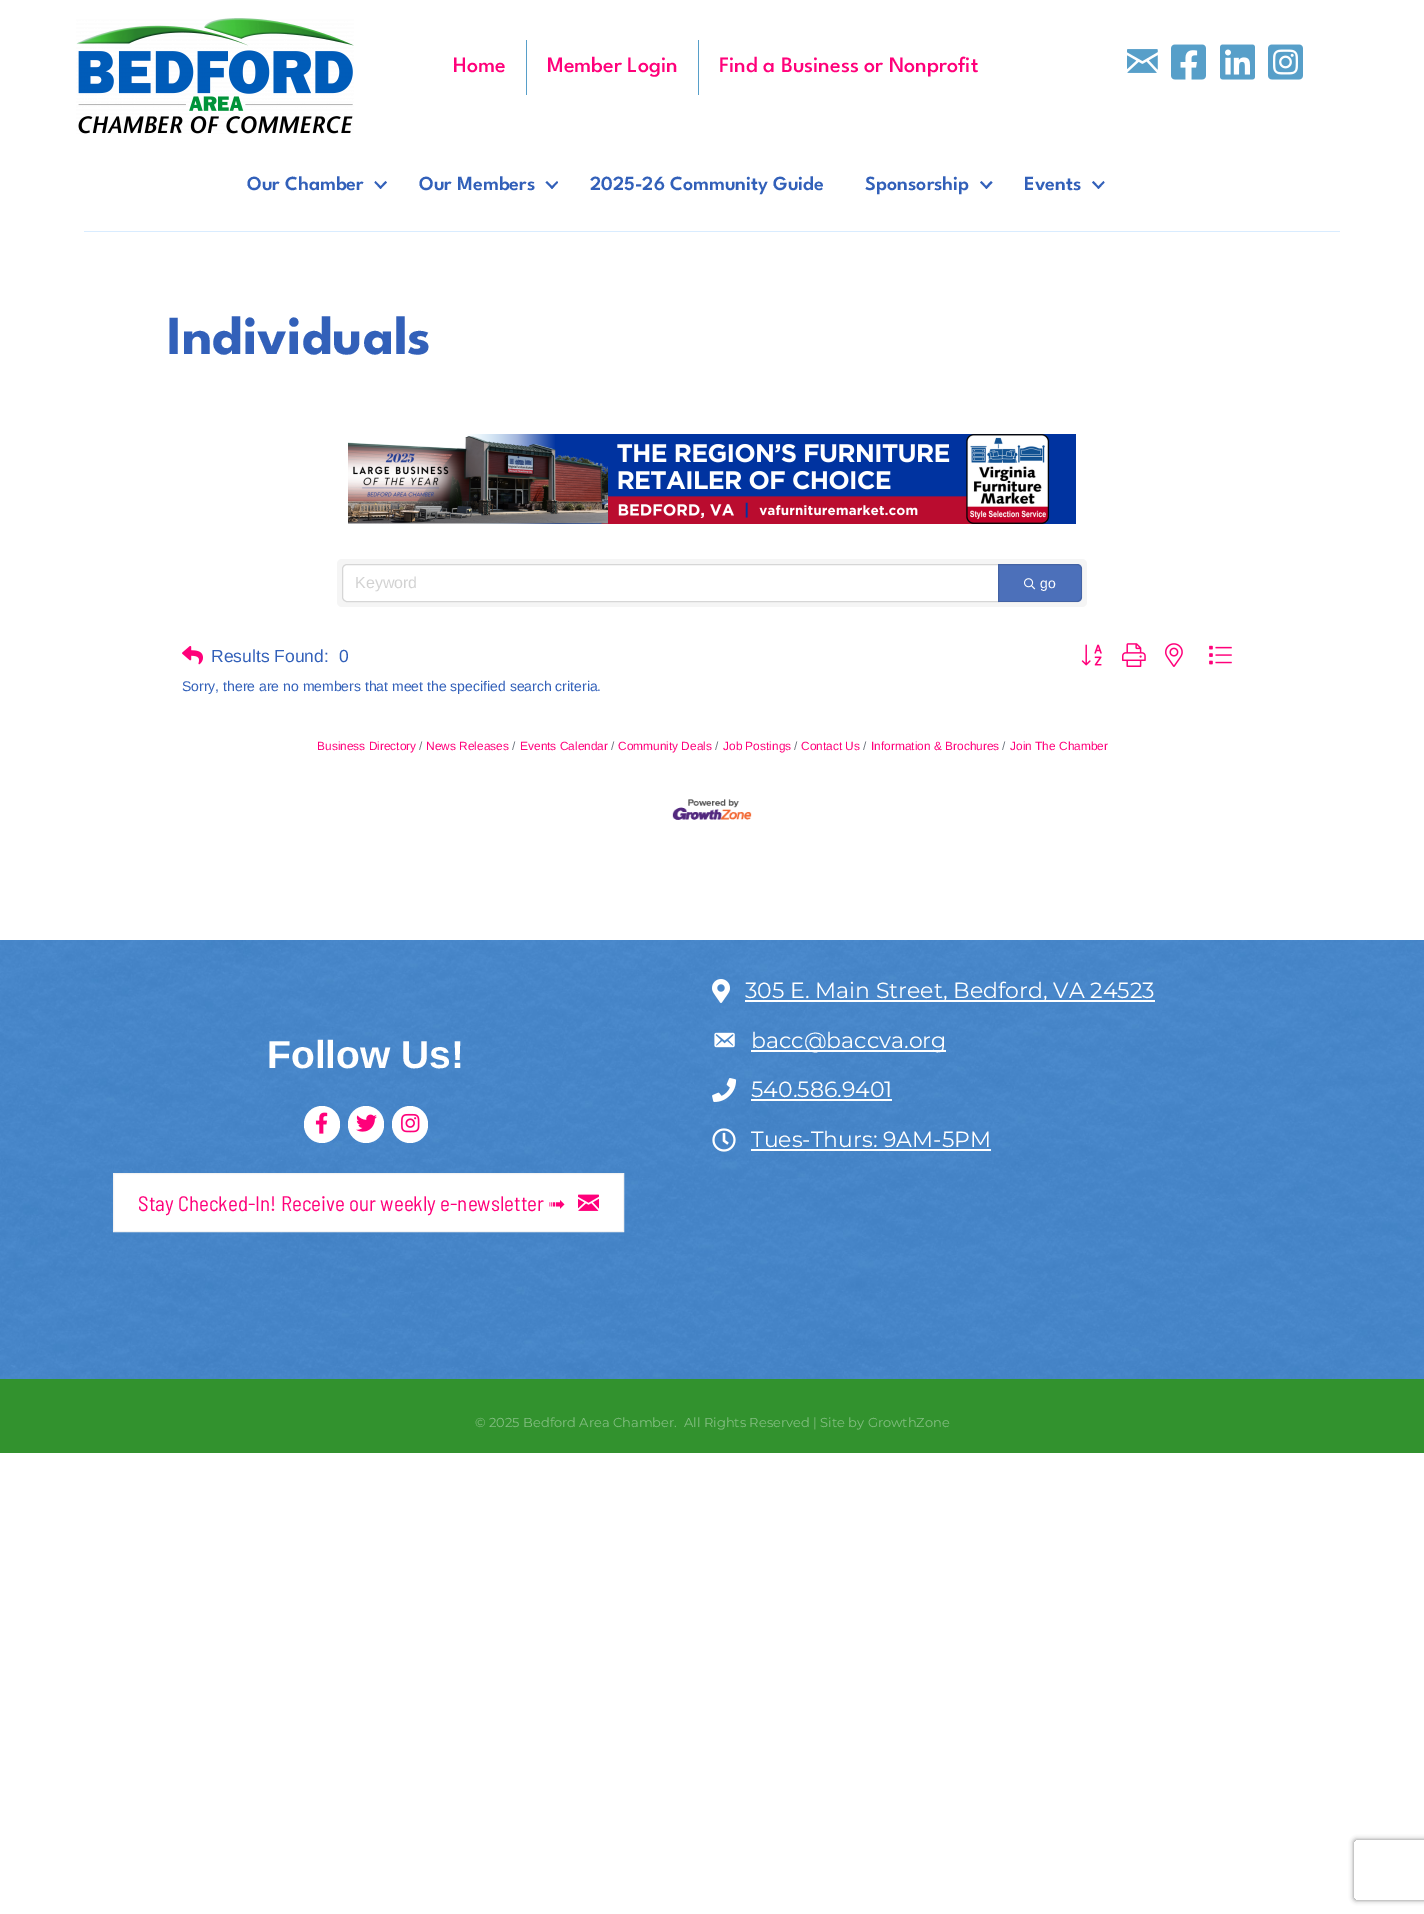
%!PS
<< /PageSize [1424 1914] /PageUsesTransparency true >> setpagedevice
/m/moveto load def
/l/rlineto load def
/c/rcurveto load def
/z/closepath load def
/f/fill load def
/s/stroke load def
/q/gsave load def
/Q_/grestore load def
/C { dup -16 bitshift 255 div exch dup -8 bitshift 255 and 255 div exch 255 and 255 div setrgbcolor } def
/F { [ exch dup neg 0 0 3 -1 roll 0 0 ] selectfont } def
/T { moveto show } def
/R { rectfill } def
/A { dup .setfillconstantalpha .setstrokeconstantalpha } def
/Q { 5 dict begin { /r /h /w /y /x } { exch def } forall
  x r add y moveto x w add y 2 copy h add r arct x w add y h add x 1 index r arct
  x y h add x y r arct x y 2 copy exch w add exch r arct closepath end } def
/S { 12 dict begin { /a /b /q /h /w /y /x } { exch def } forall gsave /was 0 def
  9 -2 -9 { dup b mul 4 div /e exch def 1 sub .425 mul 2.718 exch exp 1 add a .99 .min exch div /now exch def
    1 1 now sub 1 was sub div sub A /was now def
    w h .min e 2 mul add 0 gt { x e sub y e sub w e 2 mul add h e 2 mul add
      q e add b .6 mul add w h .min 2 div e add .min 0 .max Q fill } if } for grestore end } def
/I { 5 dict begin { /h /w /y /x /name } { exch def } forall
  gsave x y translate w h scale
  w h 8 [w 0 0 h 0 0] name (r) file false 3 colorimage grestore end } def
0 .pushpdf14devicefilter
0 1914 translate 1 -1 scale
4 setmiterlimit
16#FFFFFF C
0 0 1424 1914 R
(1.rgb) 76 18 278 116 I
/LeagueSpartan-Medium 22 F
16#FF007A C
(Home) 453 72 T
16#579FC9 C
526 40 1 55 R
16#FF007A C
(Member Login) 547 72 T
16#579FC9 C
698 40 1 55 R
16#FF007A C
(Find a Business or Nonprofit) 719 72 T
(2.rgb) 1127 49 31 24 I
(3.rgb) 1171 44 35 36 I
(4.rgb) 1220 44 35 36 I
(5.rgb) 1268 44 35 36 I
/LeagueSpartan-SemiBold 20 F
16#3260B9 C
(Our Chamber) 247 190 T
385.5 181 m 1.5 1.5 l -6.5 6.5 l -1 -1.5 l z f
375.5 181 m 6.5 6.5 l -1.5 1.5 l -6 -6.5 l z f
(Our Members) 419 190 T
557 181 m 1 1.5 l -6 6.5 l -1.5 -1.5 l z f
547 181 m 6.5 6.5 l -1.5 1.5 l -6.5 -6.5 l z f
(2025-26 Community Guide) 590 190 T
(Sponsorship) 865 190 T
991 181 m 1.5 1.5 l -6 6.5 l -1.5 -1.5 l z f
981.5 181 m 6 6.5 l -1 1.5 l -6.5 -6.5 l z f
(Events) 1024 190 T
1103.5 181 m 1 1.5 l -6 6.5 l -1.5 -1.5 l z f
1093.5 181 m 6 6.5 l -1 1.5 l -6.5 -6.5 l z f
16#D9ECFF C
84 231 1256 1 R
/LeagueSpartan-Bold 55 F
16#3260B9 C
(Individuals) 167 354 T
(6.rgb) 348 434 728 90 I
16#F5F5F5 C
337 559 750 48 5 Q f
16#FFFFFF C
347 564.5 m 651.5 0 l 0 37 l -651.5 0 l -2.5 0 -4.5 -2 -4.5 -4.5 c 0 -28 l 0 -2.5 2 -4.5 4.5 -4.5 c z q f Q_
16#D6D6D6 C
s
/LiberationSans-Regular 16 F
16#D2D2D2 C
(Keyword) 355 588 T
16#4C70BA C
998 564 m 79 0 l 3 0 5 2 5 5 c 0 28 l 0 3 -2 5 -5 5 c -79 0 l z f
0.12 A
16#000000 C
998.5 564.5 m 78.5 0 l 2.5 0 4.5 2 4.5 4.5 c 0 28 l 0 2.5 -2 4.5 -4.5 4.5 c -78.5 0 l z s
1 A
(7.rgb) 1024 578 12 12 I
/LiberationSans-Regular 14 F
16#FFFFFF C
(go) 1040 588 T
(8.rgb) 182 646 21 19 I
/LiberationSans-Regular 17.5 F
16#3260B9 C
(Results Found:) 211 662 T
(0) 339 662 T
(9.rgb) 1081 644 21 22 I
(10.rgb) 1122 643 24 24 I
(11.rgb) 1165 643 18 24 I
(12.rgb) 1209 645 23 20 I
/LiberationSans-Regular 14 F
(Sorry, there are no members that meet the specified search criteria.) 182 691 T
/LiberationSans-Regular 11.9 F
16#FF007A C
(Business Directory) 317 750 T
16#6C757D C
(/) 419 750 T
16#FF007A C
(News Releases) 426 750 T
16#6C757D C
(/) 512 750 T
16#FF007A C
(Events Calendar) 520 750 T
16#6C757D C
(/) 611 750 T
16#FF007A C
(Community Deals) 618 750 T
16#6C757D C
(/) 715 750 T
16#FF007A C
(Job Postings) 723 750 T
16#6C757D C
(/) 794 750 T
16#FF007A C
(Contact Us) 801 750 T
16#6C757D C
(/) 863 750 T
16#FF007A C
(Information & Brochures) 871 750 T
16#6C757D C
(/) 1002 750 T
16#FF007A C
(Join The Chamber) 1010 750 T
(13.rgb) 672 799 80 21 I
(14.rgb) 0 940 1424 439 I
/LiberationSans-Bold 39 F
16#FFFFFF C
(Follow Us!) 267 1068 T
304 1106 36 37 18 Q f
(15.rgb) 315 1112 13 22 I
348 1106 36 37 18 Q f
(16.rgb) 356 1114 21 18 I
392 1106 36 37 18 Q f
(17.rgb) 401 1113 19 20 I
113.5 1173.5 m 510 0 l 0 58 l -510 0 l z q f Q_
16#F3F3F3 C
s
/BarlowSemiCondensed-Regular 21 F
16#FF007A C
(Stay Checked-In! Receive our weekly e-newsletter) 138 1211 T
/DejaVuSans-Regular 21 F
(➟) 548 1211 T
(18.rgb) 578 1194 21 17 I
(19.rgb) 712 979 18 24 I
16#FFFFFF C
745 1000 410 2 R
/Montserrat-Regular 22 F
(305 E. Main Street, Bedford, VA 24523) 745 998 T
(20.rgb) 714 1032 21 16 I
751 1050 195 2 R
(bacc@baccva.org) 751 1048 T
(21.rgb) 712 1078 25 24 I
(540.586.9401) 751 1097 T
751 1099 141 2 R
(22.rgb) 712 1128 24 24 I
(Tues-Thurs: 9AM-5PM) 751 1147 T
751 1149 240 2 R
16#32922E C
0 1379 1424 74 R
/Montserrat-Regular 13 F
16#84BE82 C
(© 2025 Bedford Area Chamber.) 475 1427 T
(All Rights Reserved | Site by GrowthZone) 684 1427 T
q
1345 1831 m 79 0 l 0 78 l -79 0 l z 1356 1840 m 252 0 l 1 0 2 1 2 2 c 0 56 l 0 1 -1 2 -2 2 c -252 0 l -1 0 -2 -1 -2 -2 c 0 -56 l 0 -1 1 -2 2 -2 c z eoclip newpath
16#808080 C
1354 1840 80 60 2 2.5 1 S
Q_
.poppdf14devicefilter showpage
